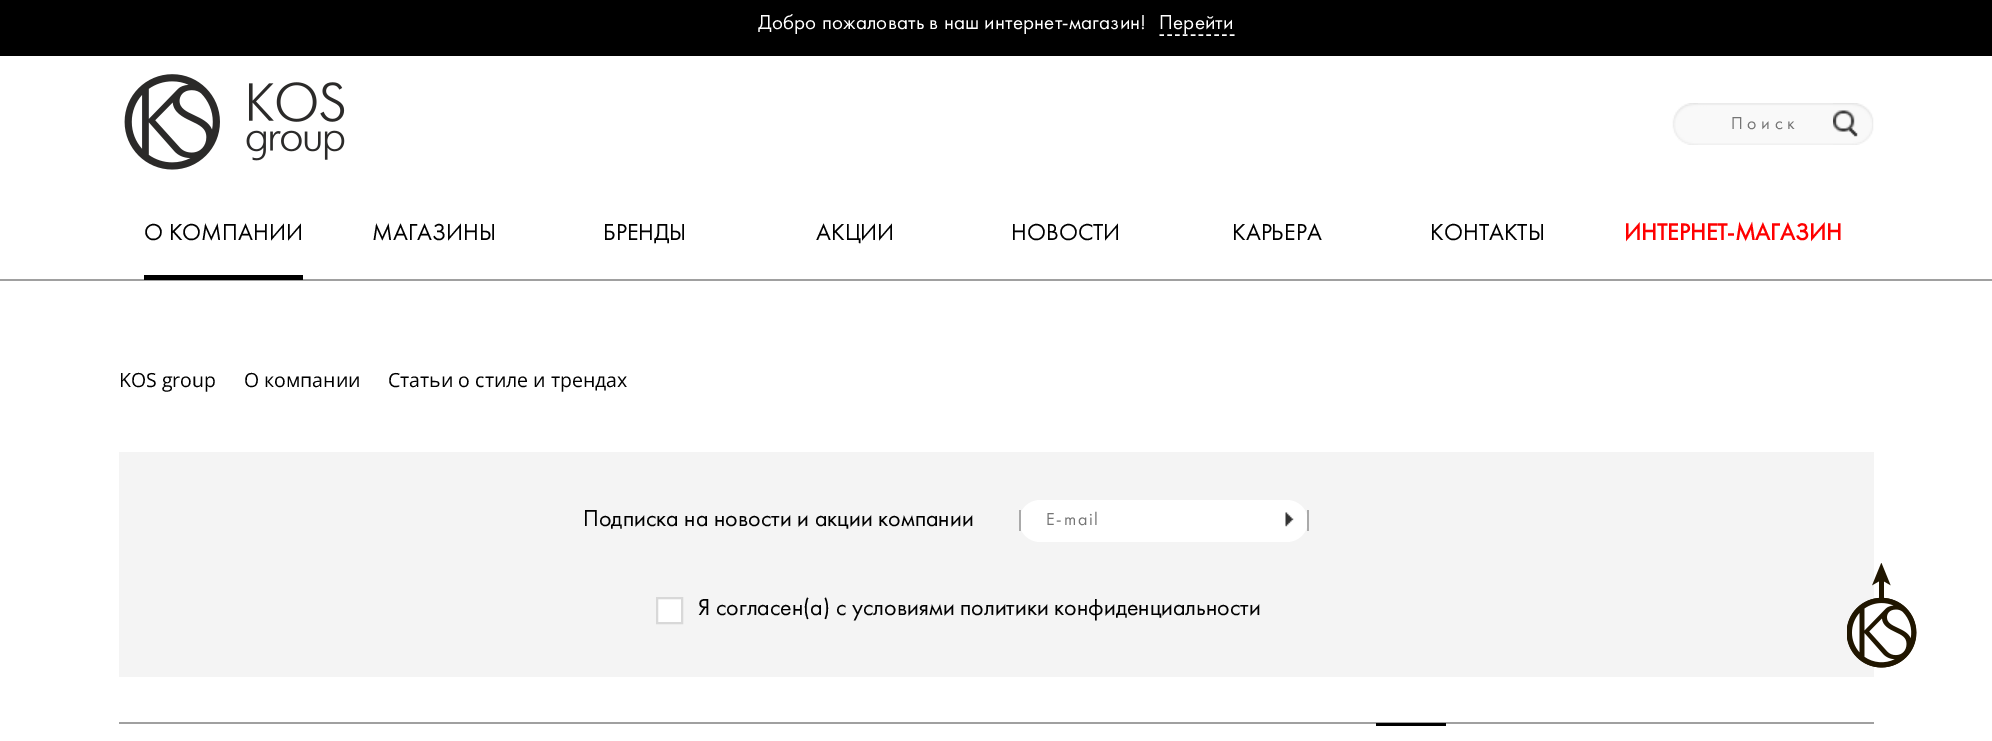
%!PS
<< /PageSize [1992 741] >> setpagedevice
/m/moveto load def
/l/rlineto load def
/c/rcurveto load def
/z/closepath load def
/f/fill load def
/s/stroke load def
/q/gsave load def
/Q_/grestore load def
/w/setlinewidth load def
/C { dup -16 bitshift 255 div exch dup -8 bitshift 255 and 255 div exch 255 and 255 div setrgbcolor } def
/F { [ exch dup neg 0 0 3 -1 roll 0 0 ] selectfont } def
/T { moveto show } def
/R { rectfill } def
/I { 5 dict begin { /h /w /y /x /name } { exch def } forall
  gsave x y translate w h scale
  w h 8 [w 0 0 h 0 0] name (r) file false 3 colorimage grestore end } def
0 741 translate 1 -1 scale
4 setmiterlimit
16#FFFFFF C
0 0 1992 741 R
16#000000 C
0 0 1992 56 R
/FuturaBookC-Regular 21 F
16#FFFFFF C
758 29 m .2 0 (Добро пожаловать в наш интернет-магазин!) ashow
1.5 w
[4.5 3.33] 0 setdash
1159.5 35 m 75 0 l s
1159 29 m .2 0 (Перейти) ashow
16#A0A0A0 C
0 279 1992 2 R
(1.rgb) 124 74 221 96 I
(2.rgb) 1672 103 26 42 I
(3.rgb) 1698 103 135 42 I
/FuturaBookC-Regular 18 F
16#757575 C
1731 129 m 4.5 0 (Поиск) ashow
(4.rgb) 1833 103 41 42 I
/FuturaBookC-Regular 24 F
16#000000 C
(О КОМПАНИИ) 144 240 T
144 275 159 5 R
(МАГАЗИНЫ) 372 240 T
(БРЕНДЫ) 603 240 T
(АКЦИИ) 816 240 T
(НОВОСТИ) 1011 240 T
(КАРЬЕРА) 1232 240 T
(КОНТАКТЫ) 1430 240 T
/FuturaBookC-Bold 24 F
16#FF0000 C
(ИНТЕРНЕТ-МАГАЗИН) 1624 240 T
/OpenSans-Regular 19.5 F
16#000000 C
(KOS group) 119 387 T
(О компании) 244 387 T
(Статьи о стиле и трендах) 388 387 T
16#F4F4F4 C
119 452 1755 225 R
/FuturaBookC-Regular 24 F
16#000000 C
(Подписка на новости и акции компании) 583 526 T
16#FFFFFF C
1040 500 m 6 0 l 0 42 l -6 0 l -11.5 0 -21 -9.5 -21 -21 c 0 -11.5 9.5 -21 21 -21 c z f
16#AAAAAA C
1019 510 2 21 R
16#FFFFFF C
1046 500 232 42 R
/FuturaBookC-Regular 18 F
16#757575 C
1046 525 m 1.75 0 (E-mail) ashow
16#FFFFFF C
1278 500 m 9 0 l 11.5 0 21 9.5 21 21 c 0 11.5 -9.5 21 -21 21 c -9 0 l z f
(5.rgb) 1285 512 9 15 I
16#AAAAAA C
1307 510 2 21 R
16#FFFFFF C
657 598 m 25 0 l 0 25 l -25 0 l z q f Q_
16#D8D8D8 C
2 w
[] 0 setdash
s
/FuturaBookC-Regular 24 F
16#000000 C
(Я согласен\(а\) с условиями политики конфиденциальности) 698 615 T
16#A0A0A0 C
119 722 1755 2 R
16#000000 C
1376 723 70 3 R
(6.rgb) 1847 563 70 105 I
showpage
